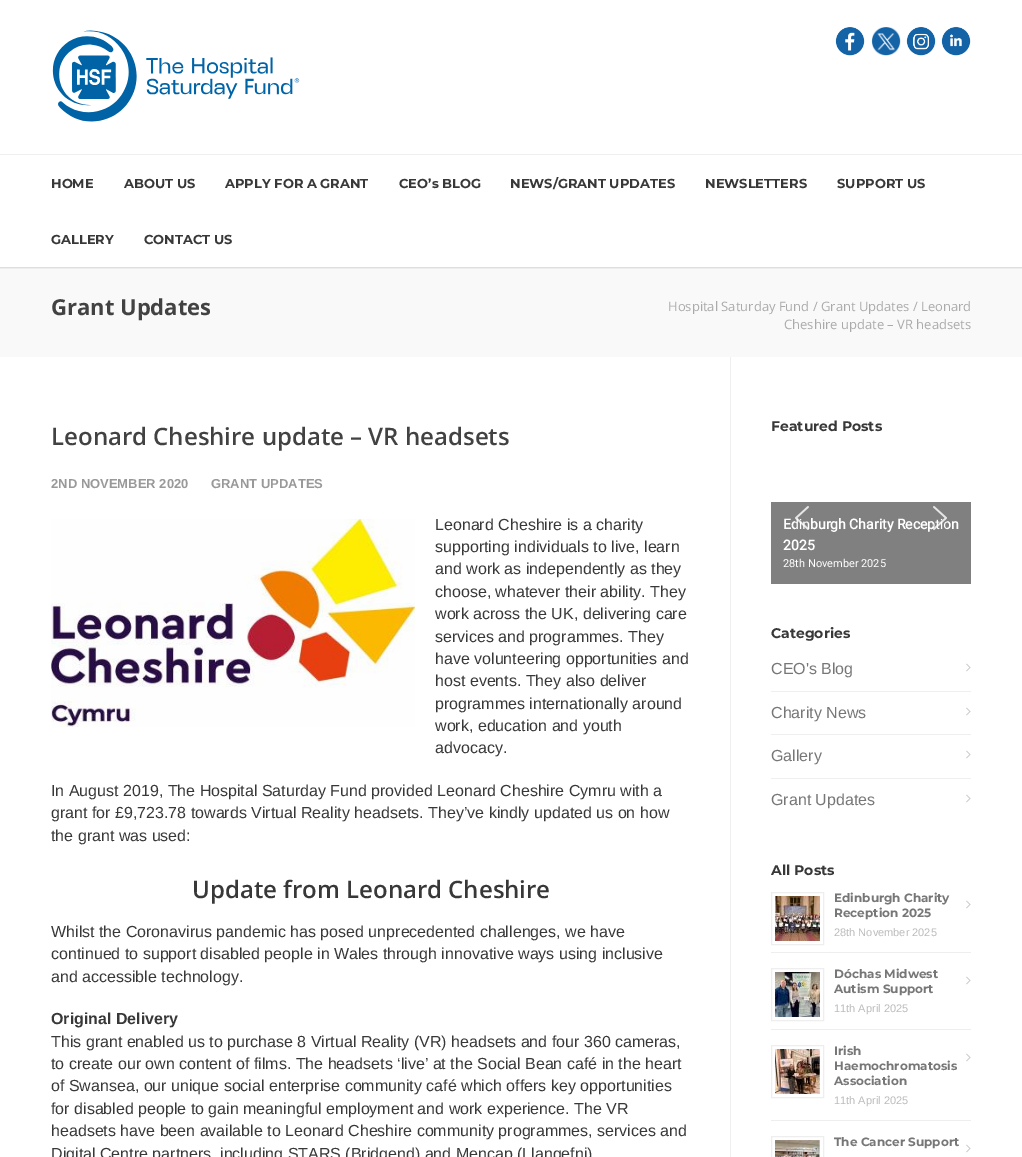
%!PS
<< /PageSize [1022 1157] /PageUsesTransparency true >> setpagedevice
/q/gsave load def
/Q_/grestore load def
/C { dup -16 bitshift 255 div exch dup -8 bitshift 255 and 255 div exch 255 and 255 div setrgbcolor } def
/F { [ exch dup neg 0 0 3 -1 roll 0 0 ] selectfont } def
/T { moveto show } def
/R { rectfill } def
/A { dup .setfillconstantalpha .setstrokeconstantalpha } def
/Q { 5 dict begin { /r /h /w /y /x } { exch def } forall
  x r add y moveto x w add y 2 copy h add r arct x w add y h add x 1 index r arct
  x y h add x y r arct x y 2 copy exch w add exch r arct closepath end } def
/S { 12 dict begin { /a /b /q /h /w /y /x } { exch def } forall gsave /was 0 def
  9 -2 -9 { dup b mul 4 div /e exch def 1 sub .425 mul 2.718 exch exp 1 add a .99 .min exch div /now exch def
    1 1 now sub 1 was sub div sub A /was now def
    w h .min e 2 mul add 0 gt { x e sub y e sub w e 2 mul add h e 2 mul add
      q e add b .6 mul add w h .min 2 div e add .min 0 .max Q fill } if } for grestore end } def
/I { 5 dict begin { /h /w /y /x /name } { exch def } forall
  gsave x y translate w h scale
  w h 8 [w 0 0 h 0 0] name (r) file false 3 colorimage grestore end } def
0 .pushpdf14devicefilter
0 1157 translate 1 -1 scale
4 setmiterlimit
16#FFFFFF C
0 0 1022 1157 R
16#F9F9F9 C
0 267 1022 90 R
q
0 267 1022 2 rectclip
16#000000 C
-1 -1 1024 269 0 1 .16 S
Q_
(1.rgb) 52 30 248 92 I
(2.rgb) 835 27 30 29 I
(3.rgb) 871 27 30 29 I
(4.rgb) 906 26 30 30 I
(5.rgb) 941 26 30 30 I
16#EFEFEF C
0 154 1022 1 R
/Montserrat-Bold 13 F
16#383838 C
(HOME) 51 188 T
(ABOUT US) 124 188 T
(APPLY FOR A GRANT) 225 188 T
(CEO’s BLOG) 399 188 T
(NEWS/GRANT UPDATES) 510 188 T
(NEWSLETTERS) 705 188 T
(SUPPORT US) 837 188 T
(GALLERY) 51 244 T
(CONTACT US) 144 244 T
/OpenSans-Bold 22 F
16#424242 C
(Grant Updates) 51 315 T
/OpenSans-Regular 13 F
16#AAAAAA C
(Hospital Saturday Fund / Grant Updates / Leonard) 668 311 T
(Cheshire update – VR headsets) 784 329 T
16#EFEFEF C
730 357 1 800 R
/OpenSans-SemiBold 24 F
16#424242 C
(Leonard Cheshire update – VR headsets) 51 445 T
/LiberationSans-Bold 13 F
16#999999 C
(2ND NOVEMBER 2020) 51 488 T
(GRANT UPDATES) 211 488 T
(6.rgb) 51 519 364 208 I
/LiberationSans-Regular 16 F
16#383838 C
(Leonard Cheshire is a charity) 435 530 T
(supporting individuals to live, learn) 435 552 T
(and work as independently as they) 435 574 T
(choose, whatever their ability. They) 435 597 T
(work across the UK, delivering care) 435 619 T
(services and programmes. They) 435 642 T
(have volunteering opportunities and) 435 664 T
(host events. They also deliver) 435 686 T
(programmes internationally around) 435 709 T
(work, education and youth) 435 731 T
(advocacy.) 435 753 T
(In August 2019, The Hospital Saturday Fund provided Leonard Cheshire Cymru with a) 51 796 T
(grant for £9,723.78 towards Virtual Reality headsets. They’ve kindly updated us on how) 51 818 T
(the grant was used:) 51 841 T
/OpenSans-SemiBold 24 F
(Update from Leonard Cheshire) 192 898 T
/LiberationSans-Regular 16 F
(Whilst the Coronavirus pandemic has posed unprecedented challenges, we have) 51 937 T
(continued to support disabled people in Wales through innovative ways using inclusive) 51 959 T
(and accessible technology.) 51 982 T
/LiberationSans-Bold 16 F
(Original Delivery) 51 1024 T
/LiberationSans-Regular 16 F
(This grant enabled us to purchase 8 Virtual Reality \(VR\) headsets and four 360 cameras,) 51 1047 T
(to create our own content of films. The headsets ‘live’ at the Social Bean café in the heart) 51 1069 T
(of Swansea, our unique social enterprise community café which offers key opportunities) 51 1091 T
(for disabled people to gain meaningful employment and work experience. The VR) 51 1114 T
(headsets have been available to Leonard Cheshire community programmes, services and) 51 1136 T
(Digital Centre partners, including STARS \(Bridgend\) and Mencap \(Llangefni\)) 51 1159 T
/Montserrat-Bold 14 F
(Featured Posts) 771 431 T
16#808080 C
771 502 200 82 R
/Roboto-Bold 14 F
16#FFFFFF C
(Edinburgh Charity Reception) 783 529 T
(7.rgb) 795 506 14 24 I
(8.rgb) 933 506 14 24 I
(2025) 783 550 T
/Roboto-Regular 11 F
(28th November 2025) 783 567 T
/Montserrat-Bold 14 F
16#383838 C
(Categories) 771 638 T
16#EFEFEF C
771 691 200 1 R
/LiberationSans-Regular 16 F
16#777777 C
(CEO's Blog) 771 674 T
(9.rgb) 966 663 5 9 I
16#EFEFEF C
771 734 200 1 R
16#777777 C
(Charity News) 771 718 T
(9.rgb) 966 707 5 9 I
16#EFEFEF C
771 778 200 1 R
16#777777 C
(Gallery) 771 761 T
(9.rgb) 966 750 5 9 I
(Grant Updates) 771 805 T
(9.rgb) 966 794 5 9 I
/Montserrat-Bold 14 F
16#383838 C
(All Posts) 771 875 T
16#EEEEEE C
771 952 200 1 R
771.5 892.5 52 52 rectstroke
(10.rgb) 775 896 45 45 I
/Montserrat-Bold 12 F
16#777777 C
(Edinburgh Charity) 834 902 T
(Reception 2025) 834 917 T
(9.rgb) 966 900 5 9 I
/LiberationSans-Regular 11 F
16#BBBBBB C
(28th November 2025) 834 936 T
16#EEEEEE C
771 1029 200 1 R
771.5 968.5 52 52 rectstroke
(11.rgb) 775 972 45 45 I
/Montserrat-Bold 12 F
16#777777 C
(Dóchas Midwest) 834 978 T
(Autism Support) 834 993 T
(9.rgb) 966 976 5 9 I
/LiberationSans-Regular 11 F
16#BBBBBB C
(11th April 2025) 834 1012 T
16#EEEEEE C
771 1120 200 1 R
771.5 1045.5 52 52 rectstroke
(12.rgb) 775 1049 45 45 I
/Montserrat-Bold 12 F
16#777777 C
(Irish) 834 1055 T
(Haemochromatosis) 834 1070 T
(Association) 834 1085 T
(9.rgb) 966 1053 5 9 I
/LiberationSans-Regular 11 F
16#BBBBBB C
(11th April 2025) 834 1104 T
16#EEEEEE C
771.5 1136.5 52 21 rectstroke
(13.rgb) 775 1140 45 17 I
/Montserrat-Bold 12 F
16#777777 C
(The Cancer Support) 834 1146 T
(9.rgb) 966 1144 5 9 I
.poppdf14devicefilter showpage
